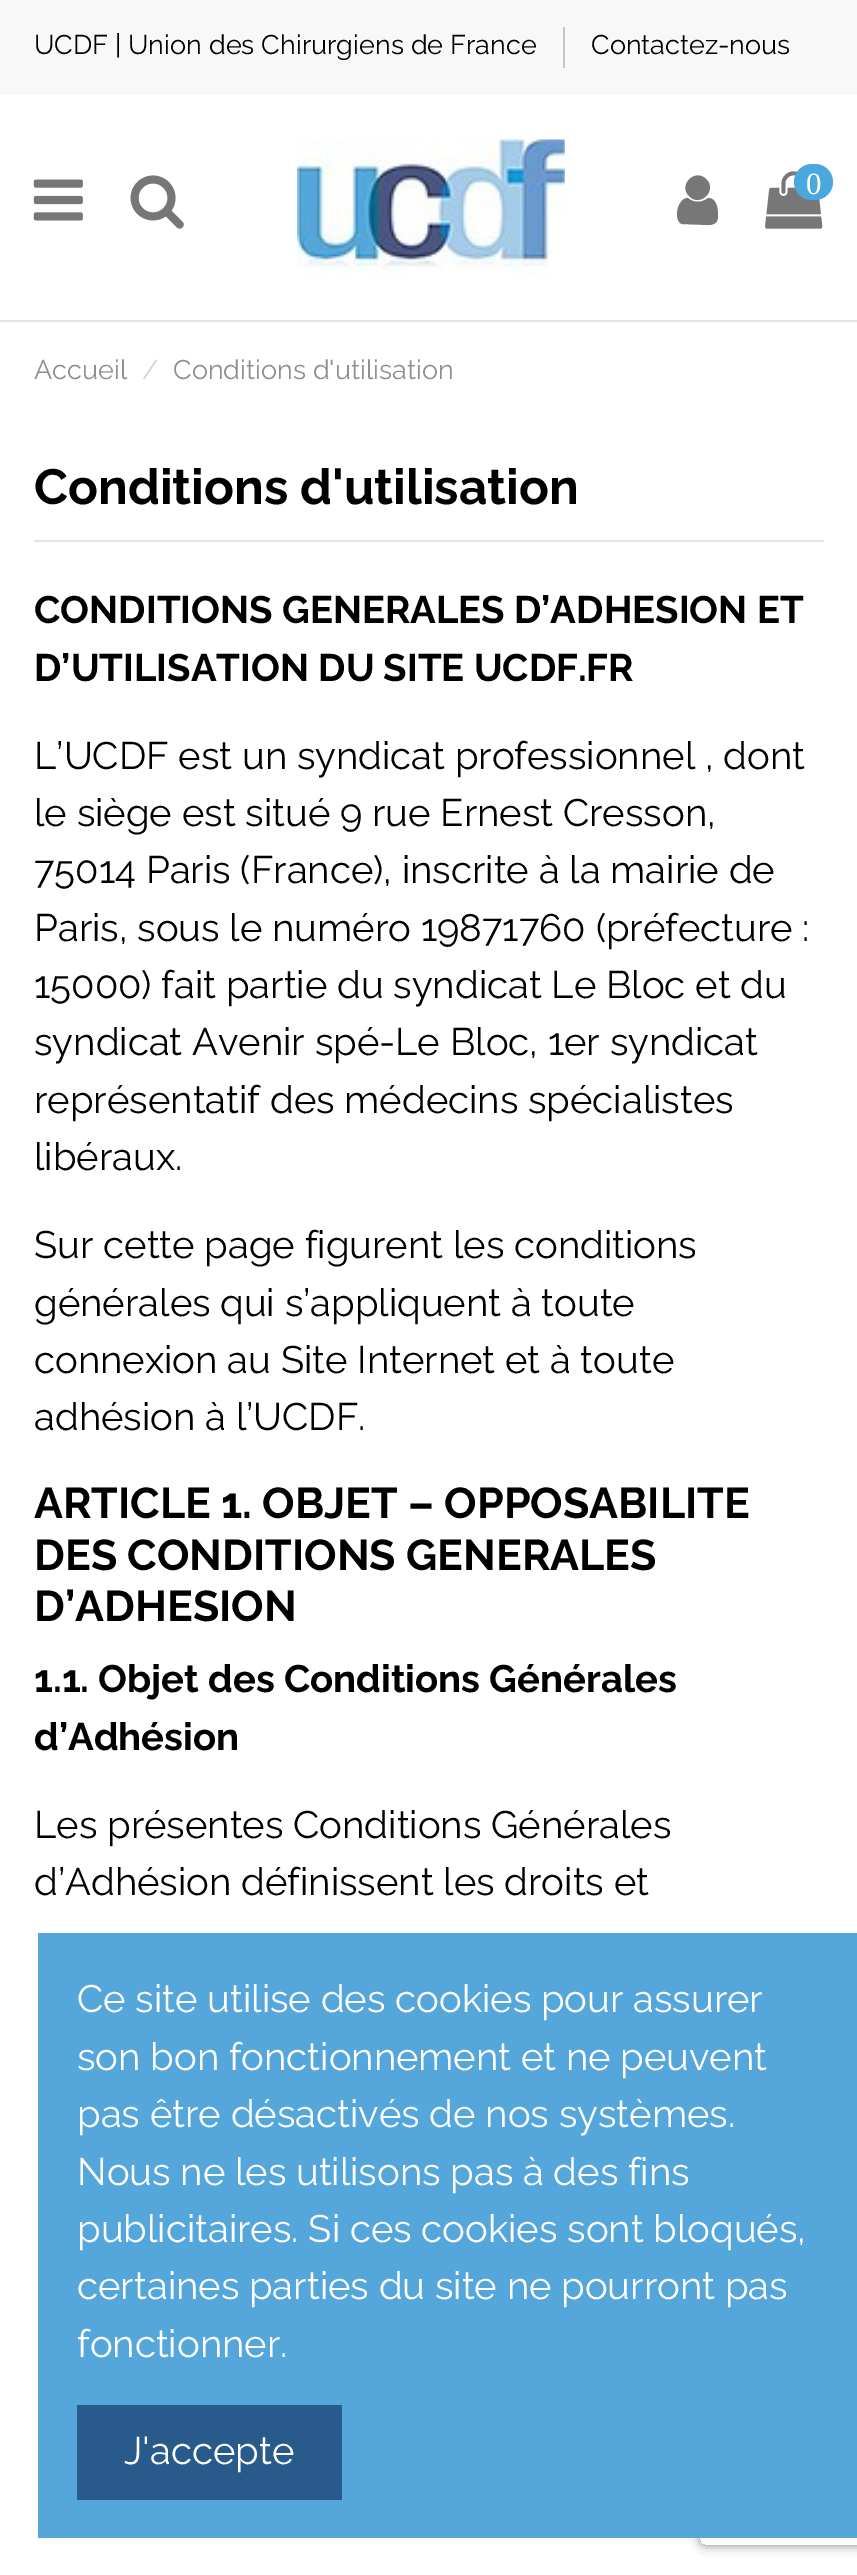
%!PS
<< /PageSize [857 2575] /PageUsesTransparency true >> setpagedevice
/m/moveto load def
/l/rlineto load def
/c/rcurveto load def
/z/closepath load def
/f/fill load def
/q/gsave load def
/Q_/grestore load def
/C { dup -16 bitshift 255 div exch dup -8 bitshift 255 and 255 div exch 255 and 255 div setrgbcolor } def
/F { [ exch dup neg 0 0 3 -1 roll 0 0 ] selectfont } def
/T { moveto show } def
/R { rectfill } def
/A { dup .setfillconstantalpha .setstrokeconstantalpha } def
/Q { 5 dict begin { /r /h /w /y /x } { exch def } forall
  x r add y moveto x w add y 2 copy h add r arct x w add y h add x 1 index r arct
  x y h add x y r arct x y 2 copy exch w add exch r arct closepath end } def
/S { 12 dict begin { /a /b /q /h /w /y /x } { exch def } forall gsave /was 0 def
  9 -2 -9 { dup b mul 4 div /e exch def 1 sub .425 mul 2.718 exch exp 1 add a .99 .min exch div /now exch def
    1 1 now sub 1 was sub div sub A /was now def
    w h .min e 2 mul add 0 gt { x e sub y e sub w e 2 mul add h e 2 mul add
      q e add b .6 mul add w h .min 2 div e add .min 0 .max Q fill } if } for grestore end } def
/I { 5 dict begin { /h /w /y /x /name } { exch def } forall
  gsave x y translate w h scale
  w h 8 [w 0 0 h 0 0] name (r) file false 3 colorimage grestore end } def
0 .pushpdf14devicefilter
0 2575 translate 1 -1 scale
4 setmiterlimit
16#FFFFFF C
0 0 857 2575 R
16#F8F8F8 C
0 0 857 95 R
/Raleway-Regular 27 F
16#000000 C
(UCDF | Union des Chirurgiens de France) 34 54 T
16#C7C6C6 C
563 27 2 41 R
16#000000 C
(Contactez-nous) 591 54 T
16#E3E3E3 C
0 320 857 2 R
(1.rgb) 33 179 50 42 I
(2.rgb) 130 175 54 54 I
(3.rgb) 297 139 268 136 I
16#777777 C
718 216 m 0 8 -5 9 -11 9 c -25 -1 l -9 -3 -5 -26 6 -26 c 5 5 14 5 20 0 c 9 0 10 11 10 18 c z 706 179 m 12 11 -6 29 -17 17 c -11 -11 6 -28 17 -17 c z f
(4.rgb) 765 171 58 58 I
16#4AA8DE C
794 164 39 36 18 Q f
/LiberationSerif-Regular 31 F
16#FFFFFF C
(0) 806 194 T
/Raleway-Regular 27 F
16#8F8F8F C
(Accueil) 34 379 T
16#D2D2D2 C
(/) 142 379 T
16#8F8F8F C
(Conditions d'utilisation) 173 379 T
16#E3E3E3 C
34 540 790 2 R
/Raleway-Bold 49.5 F
16#000000 C
(Conditions d'utilisation) 34 504 T
/Raleway-Bold 38.25 F
(CONDITIONS GENERALES D’ADHESION ET) 34 623 T
(D’UTILISATION DU SITE UCDF.FR) 34 681 T
/Raleway-Regular 38.25 F
(L’UCDF est un syndicat professionnel , dont) 34 769 T
(le siège est situé 9 rue Ernest Cresson,) 34 826 T
(75014 Paris \(France\), inscrite à la mairie de) 34 883 T
(Paris, sous le numéro 19871760 \(préfecture :) 34 941 T
(15000\) fait partie du syndicat Le Bloc et du) 34 998 T
(syndicat Avenir spé-Le Bloc, 1er syndicat) 34 1055 T
(représentatif des médecins spécialistes) 34 1113 T
(libéraux.) 34 1170 T
(Sur cette page figurent les conditions) 34 1258 T
(générales qui s’appliquent à toute) 34 1316 T
(connexion au Site Internet et à toute) 34 1373 T
(adhésion à l’UCDF.) 34 1430 T
/Raleway-Bold 43 F
(ARTICLE 1. OBJET – OPPOSABILITE) 34 1518 T
(DES CONDITIONS GENERALES) 34 1570 T
(D’ADHESION) 34 1621 T
/Raleway-Bold 38.25 F
(1.1. Objet des Conditions Générales) 34 1692 T
(d’Adhésion) 34 1750 T
/Raleway-Regular 38.25 F
(Les présentes Conditions Générales) 34 1838 T
(d’Adhésion définissent les droits et) 34 1895 T
q
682 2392 m 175 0 l 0 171 l -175 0 l z 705 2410 m 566 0 l 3 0 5 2 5 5 c 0 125 l 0 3 -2 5 -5 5 c -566 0 l -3 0 -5 -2 -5 -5 c 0 -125 l 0 -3 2 -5 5 -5 c z eoclip newpath
16#808080 C
700 2410 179 135 5 5.5 1 S
Q_
16#55A6DB C
38 1933 819 605 R
16#FFFFFF C
(Ce site utilise des cookies pour assurer) 77 2012 T
(son bon fonctionnement et ne peuvent) 77 2070 T
(pas être désactivés de nos systèmes.) 77 2127 T
(Nous ne les utilisons pas à des fins) 77 2185 T
(publicitaires. Si ces cookies sont bloqués,) 77 2242 T
(certaines parties du site ne pourront pas) 77 2299 T
(fonctionner.) 77 2357 T
16#285A8B C
77 2405 265 95 R
16#FFFFFF C
(J'accepte) 124 2464 T
.poppdf14devicefilter showpage
